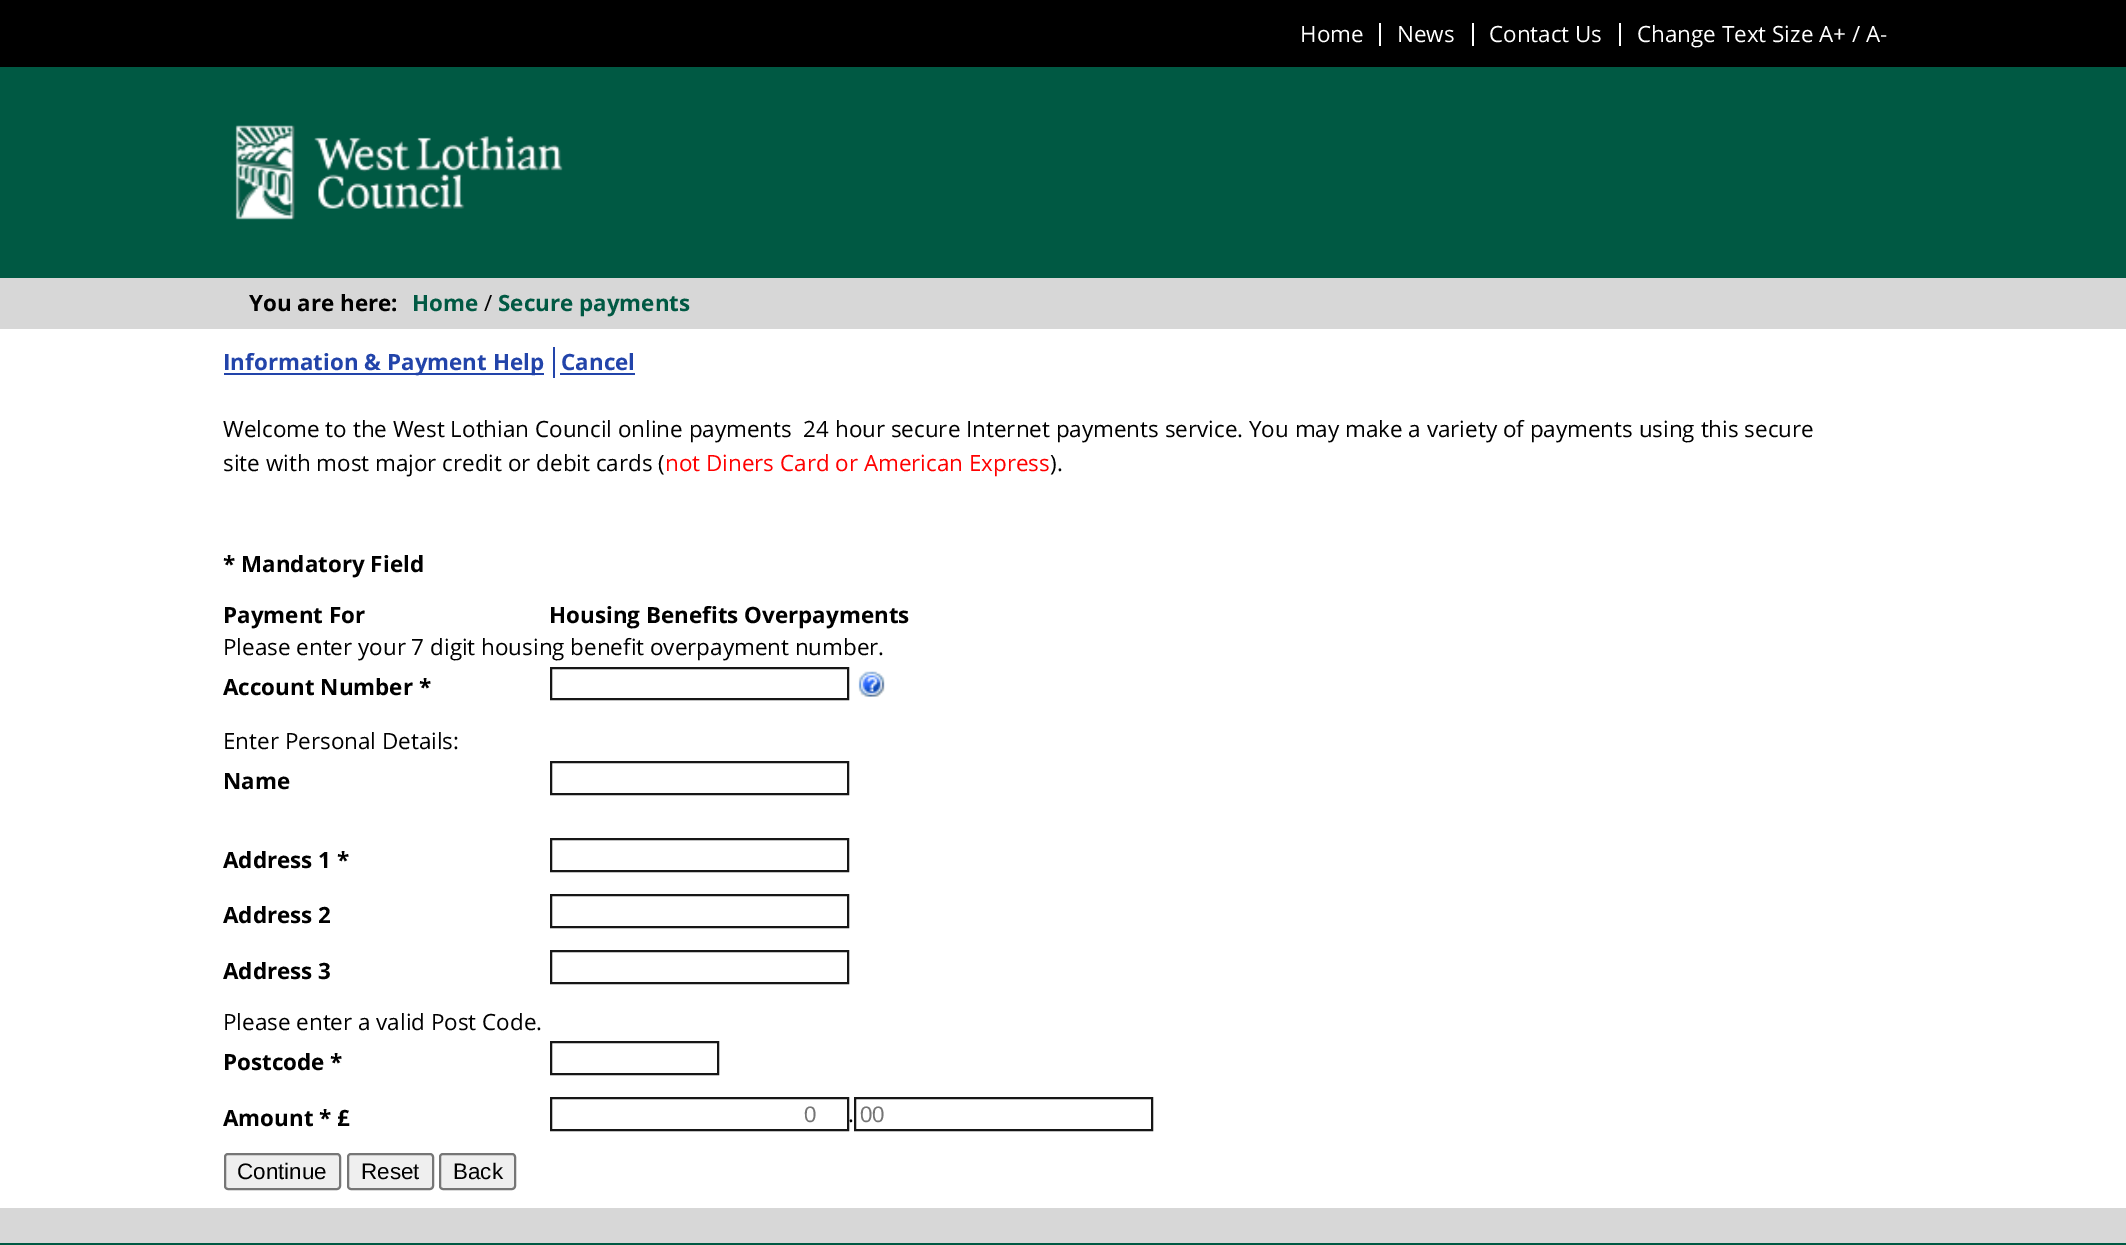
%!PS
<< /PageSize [2126 1245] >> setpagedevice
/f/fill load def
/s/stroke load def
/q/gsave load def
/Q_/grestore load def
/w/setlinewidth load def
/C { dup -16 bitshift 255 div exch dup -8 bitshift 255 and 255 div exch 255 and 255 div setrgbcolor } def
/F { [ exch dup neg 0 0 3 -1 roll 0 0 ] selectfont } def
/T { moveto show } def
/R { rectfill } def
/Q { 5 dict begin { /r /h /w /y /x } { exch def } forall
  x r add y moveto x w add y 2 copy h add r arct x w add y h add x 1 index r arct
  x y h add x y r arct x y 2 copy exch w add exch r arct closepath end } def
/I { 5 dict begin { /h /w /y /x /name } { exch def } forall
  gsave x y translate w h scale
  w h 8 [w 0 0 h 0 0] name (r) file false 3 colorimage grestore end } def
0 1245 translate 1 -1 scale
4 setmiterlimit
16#005943 C
0 0 2126 1245 R
16#000000 C
0 0 2126 67 R
16#FFFFFF C
1379 23 2 23 R
/OpenSans-Regular 22.4 F
(Home) 1300 42 T
1472 23 2 23 R
(News) 1397 42 T
1619 23 2 23 R
(Contact Us) 1489 42 T
(Change Text Size A+ / A-) 1637 42 T
(1.rgb) 235 125 328 95 I
16#D7D7D7 C
0 278 2126 51 R
/OpenSans-Bold 22.4 F
16#000000 C
(You are here:) 249 311 T
16#005943 C
(Home) 412 311 T
/OpenSans-Regular 22.4 F
16#000000 C
(/) 484 311 T
/OpenSans-Bold 22.4 F
16#005943 C
(Secure payments) 498 311 T
16#FFFFFF C
0 329 2126 879 R
16#2244AA C
553 347 2 31 R
224 373 320 2 R
(Information & Payment Help) 223 370 T
(Cancel) 561 370 T
560 373 75 2 R
/OpenSans-Regular 22.4 F
16#000000 C
(Welcome to the West Lothian Council online payments  24 hour secure Internet payments service. You may make a variety of payments using this secure) 223 437 T
(site with most major credit or debit cards \() 223 471 T
16#FF0000 C
(not Diners Card or American Express) 665 471 T
16#000000 C
(\).) 1050 471 T
/OpenSans-Bold 22.4 F
(* Mandatory Field) 223 572 T
(Payment For) 223 623 T
(Housing Benefits Overpayments) 549 623 T
/OpenSans-Regular 22.4 F
(Please enter your 7 digit housing benefit overpayment number.) 223 655 T
/OpenSans-Bold 22.4 F
(Account Number *) 223 695 T
16#161616 C
2 w
551 668 297 31 rectstroke
(2.rgb) 858 671 27 26 I
/OpenSans-Regular 22.4 F
16#000000 C
(Enter Personal Details:) 223 749 T
/OpenSans-Bold 22.4 F
(Name) 223 789 T
16#161616 C
551 762 297 32 rectstroke
16#000000 C
(Address 1 *) 223 868 T
16#161616 C
551 839 297 32 rectstroke
16#000000 C
(Address 2) 223 923 T
16#161616 C
551 895 297 32 rectstroke
16#000000 C
(Address 3) 223 979 T
16#161616 C
551 951 297 32 rectstroke
/OpenSans-Regular 22.4 F
16#000000 C
(Please enter a valid Post Code.) 223 1030 T
/OpenSans-Bold 22.4 F
(Postcode *) 223 1070 T
16#161616 C
551 1042 167 32 rectstroke
16#000000 C
(Amount * £) 223 1126 T
16#161616 C
551 1098 297 32 rectstroke
/LiberationSans-Regular 22.4 F
16#757575 C
(0) 804 1122 T
/OpenSans-Regular 22.4 F
16#000000 C
(.) 848 1122 T
16#161616 C
855 1098 297 32 rectstroke
/LiberationSans-Regular 22.4 F
16#757575 C
(00) 860 1122 T
16#EFEFEF C
225 1154 115 35 3 Q q f Q_
16#767676 C
s
16#000000 C
(Continue) 237 1179 T
16#EFEFEF C
348 1154 85 35 3 Q q f Q_
16#767676 C
s
16#000000 C
(Reset) 361 1179 T
16#EFEFEF C
440 1154 75 35 3 Q q f Q_
16#767676 C
s
16#000000 C
(Back) 453 1179 T
16#D7D7D7 C
0 1208 2126 35 R
showpage
